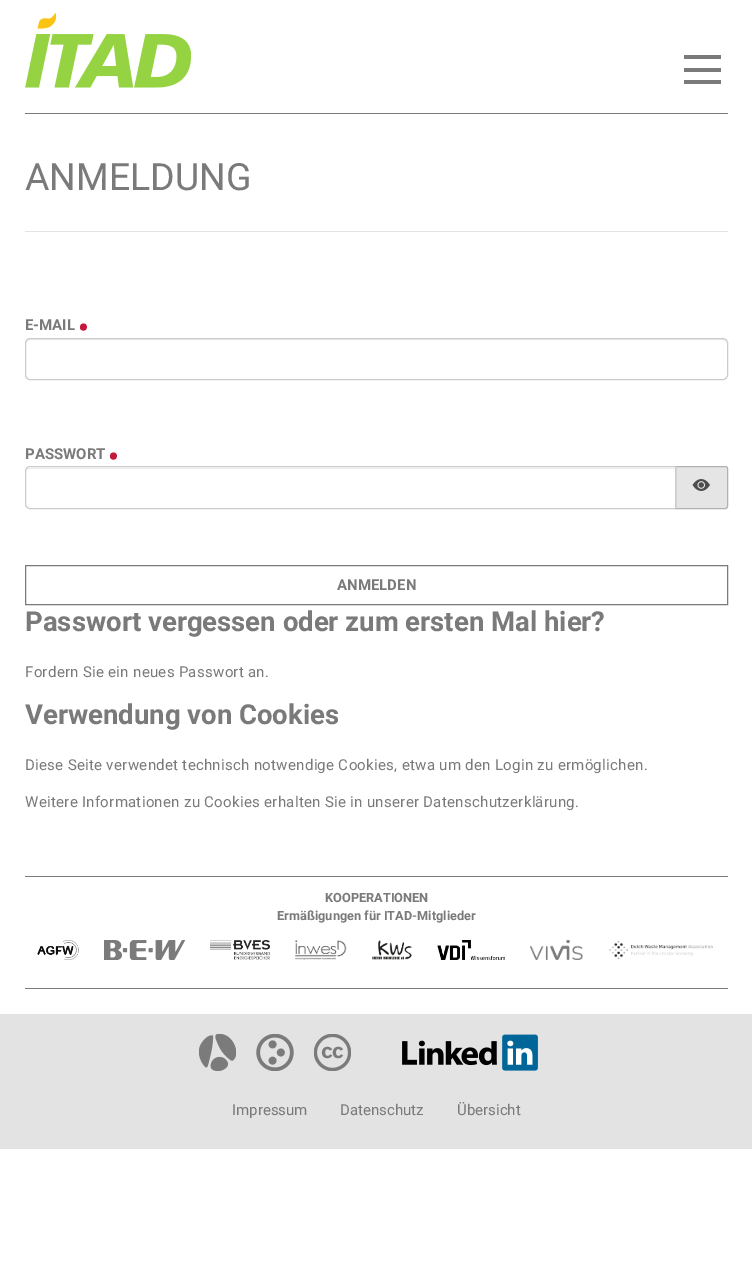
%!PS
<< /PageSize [752 1267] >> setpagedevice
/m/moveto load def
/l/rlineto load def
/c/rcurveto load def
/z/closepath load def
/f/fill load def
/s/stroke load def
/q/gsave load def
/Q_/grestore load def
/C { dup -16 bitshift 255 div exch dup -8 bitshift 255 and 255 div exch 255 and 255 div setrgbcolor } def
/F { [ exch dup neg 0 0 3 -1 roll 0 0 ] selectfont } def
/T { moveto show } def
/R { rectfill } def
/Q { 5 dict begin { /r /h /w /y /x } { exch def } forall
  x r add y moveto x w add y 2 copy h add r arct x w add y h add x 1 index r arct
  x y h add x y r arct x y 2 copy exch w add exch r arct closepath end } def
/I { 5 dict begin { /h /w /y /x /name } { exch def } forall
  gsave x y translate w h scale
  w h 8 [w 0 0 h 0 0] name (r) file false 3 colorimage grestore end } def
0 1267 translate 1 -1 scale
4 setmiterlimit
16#FFFFFF C
0 0 752 1267 R
16#7A7A7A C
25 113 703 1 R
(1.rgb) 25 13 166 75 I
684 55 37 4 R
684 68 37 4 R
684 80 37 4 R
/Roboto-Regular 37.5 F
(ANMELDUNG) 25 190 T
16#E3E3E3 C
25 231 703 1 R
/Roboto-Bold 15 F
16#7A7A7A C
(E-MAIL) 25 330 T
/Roboto-Bold 30 F
16#C4183C C
(•) 78 338 T
16#ECECEC C
30 340 m 692 0 l 3 0 4 2 4 4 c 0 -3 -1 -5 -4 -5 c -692 0 l -3 1 l -1 1 l 0 3 l 0 -2 2 -4 4 -4 c z f
16#CCCCCC C
25.5 338.5 702 41 4.5 Q s
/Roboto-Bold 15 F
16#7A7A7A C
(PASSWORT) 25 459 T
/Roboto-Bold 30 F
16#C4183C C
(•) 108 467 T
16#E5E5E5 C
675.5 466.5 m 50 0 l 1 0 2 1 2 2 c 0 38 l 0 1 -1 2 -2 2 c -50 0 l z q f Q_
16#B2B2B2 C
s
16#FFFFFF C
30 466 m 646 0 l 0 43 l -646 0 l -3 0 -5 -2 -5 -5 c 0 -33 l 0 -3 2 -5 5 -5 c z f
16#ECECEC C
30 469 m 645 0 l 0 -1 l -645 0 l -2 0 -4 2 -4 4 c 0 -2 2 -3 4 -3 c z f
16#CCCCCC C
30 466.5 m 645.5 0 l 0 42 l -645.5 0 l -2.5 0 -4.5 -2 -4.5 -4.5 c 0 -33 l 0 -2.5 2 -4.5 4.5 -4.5 c z s
(2.rgb) 692 479 18 12 I
16#7A7A7A C
25.5 565.5 702 39 rectstroke
/Roboto-Bold 15 F
(ANMELDEN) 337 590 T
/Roboto-Bold 27.5 F
(Passwort vergessen oder zum ersten Mal hier?) 25 631 T
/Roboto-Regular 15 F
25 677 m .3 0 (Fordern Sie ein neues Passwort an.) ashow
/Roboto-Bold 27.5 F
(Verwendung von Cookies) 25 724 T
/Roboto-Regular 15 F
25 770 m .3 0 (Diese Seite verwendet technisch notwendige Cookies, etwa um den Login zu ermöglichen.) ashow
25 807 m .3 0 (Weitere Informationen zu Cookies erhalten Sie in unserer Datenschutzerklärung.) ashow
25 876 703 1 R
25 988 703 1 R
/Roboto-Bold 12.75 F
(KOOPERATIONEN) 325 902 T
(Ermäßigungen für ITAD-Mitglieder) 277 920 T
(3.rgb) 37 940 42 20 I
(4.rgb) 104 940 81 20 I
(5.rgb) 210 940 60 20 I
(6.rgb) 295 940 52 20 I
(7.rgb) 372 940 40 20 I
(8.rgb) 437 940 68 20 I
(9.rgb) 530 940 53 20 I
(10.rgb) 609 940 104 20 I
16#E3E3E3 C
0 1014 752 135 R
(11.rgb) 199 1034 37 37 I
(12.rgb) 256 1034 38 37 I
(13.rgb) 314 1034 37 37 I
(14.rgb) 402 1034 136 37 I
/Roboto-Regular 15 F
16#7A7A7A C
(Impressum) 232 1115 T
(Datenschutz) 340 1115 T
(Übersicht) 457 1115 T
showpage
